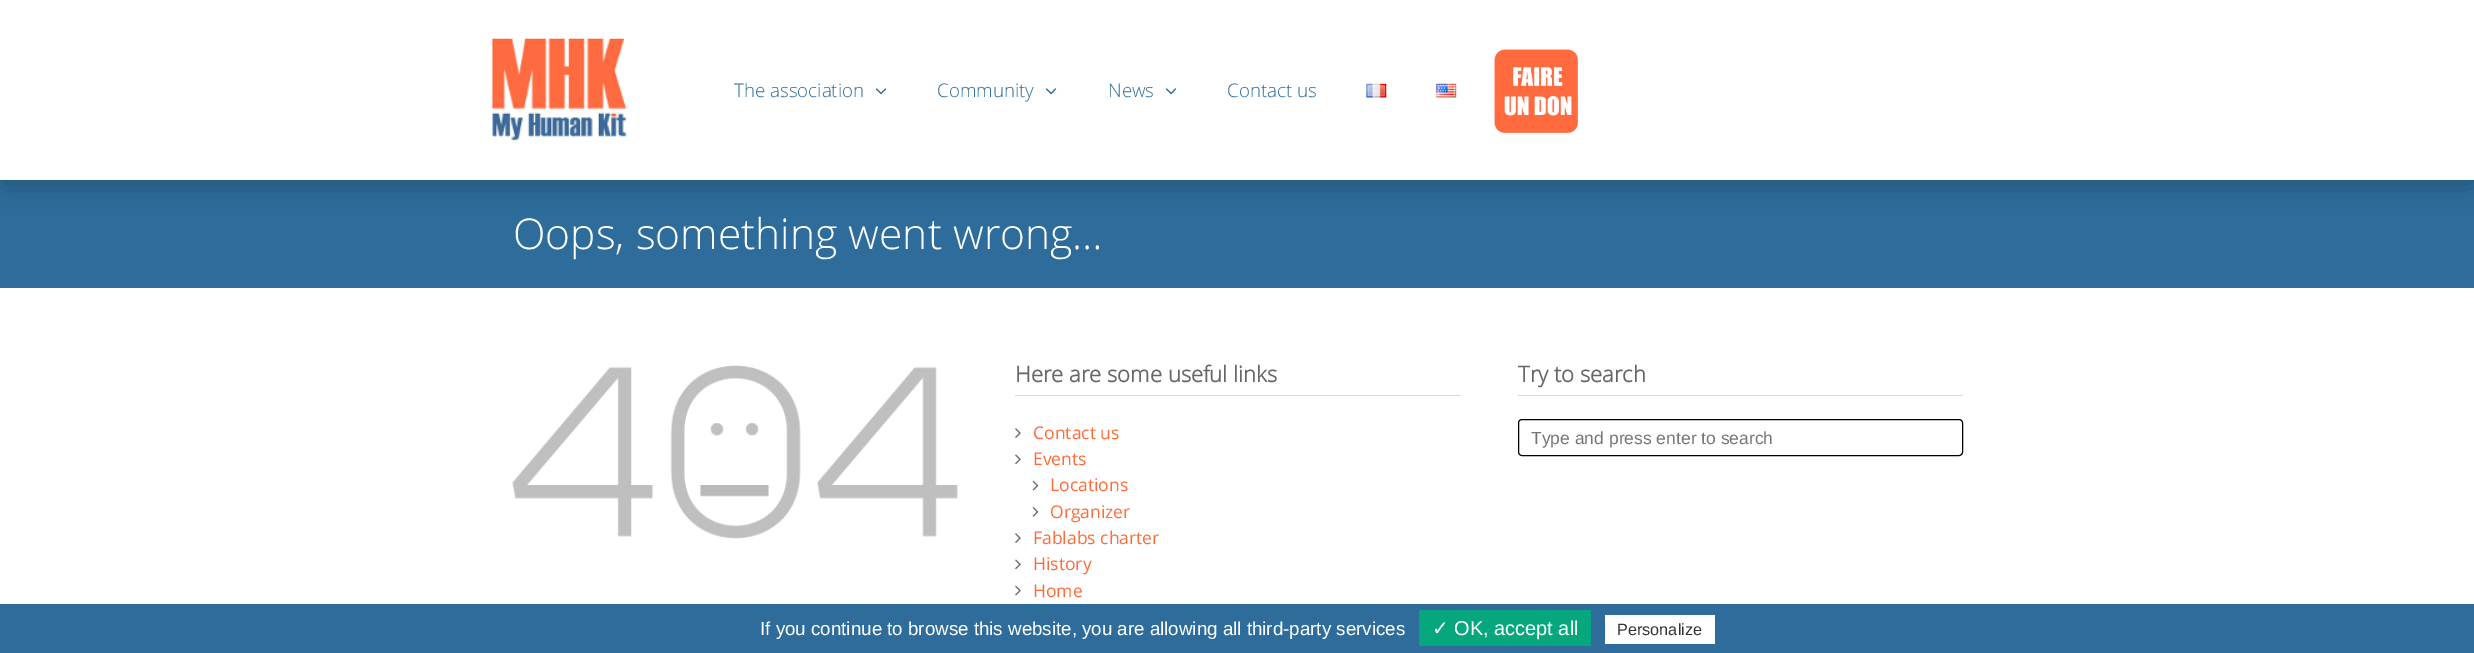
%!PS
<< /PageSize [2474 653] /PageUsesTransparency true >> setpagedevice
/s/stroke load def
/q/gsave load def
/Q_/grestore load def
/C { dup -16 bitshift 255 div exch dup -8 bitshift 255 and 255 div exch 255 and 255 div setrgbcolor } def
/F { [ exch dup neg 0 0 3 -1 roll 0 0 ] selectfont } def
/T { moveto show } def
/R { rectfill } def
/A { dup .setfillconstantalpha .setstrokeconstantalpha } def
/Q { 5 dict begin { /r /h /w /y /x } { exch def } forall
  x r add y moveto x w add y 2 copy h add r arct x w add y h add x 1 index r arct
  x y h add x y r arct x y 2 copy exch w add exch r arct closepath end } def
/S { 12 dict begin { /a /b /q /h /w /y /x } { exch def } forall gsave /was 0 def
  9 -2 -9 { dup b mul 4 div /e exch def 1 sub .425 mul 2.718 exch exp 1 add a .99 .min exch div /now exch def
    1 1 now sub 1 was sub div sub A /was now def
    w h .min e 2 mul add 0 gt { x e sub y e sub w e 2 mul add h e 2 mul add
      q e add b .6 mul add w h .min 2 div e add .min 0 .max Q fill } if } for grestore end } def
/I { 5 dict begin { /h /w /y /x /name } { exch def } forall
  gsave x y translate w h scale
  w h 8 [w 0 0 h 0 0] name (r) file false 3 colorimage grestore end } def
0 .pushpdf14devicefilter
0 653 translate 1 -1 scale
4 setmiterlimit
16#FFFFFF C
0 0 2474 653 R
(1.rgb) 491 38 136 103 I
/OpenSans-Light 18.75 F
16#2D6C9B C
(The association) 734 97 T
(2.rgb) 875 88 12 7 I
(Community) 937 97 T
(2.rgb) 1045 88 12 7 I
(News) 1108 97 T
(2.rgb) 1165 88 12 7 I
(Contact us) 1227 97 T
(3.rgb) 1366 83 21 15 I
(4.rgb) 1436 83 21 15 I
(5.rgb) 1494 49 84 84 I
0 180 2474 108 R
q
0 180 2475 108 rectclip
16#000000 C
0 158 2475 25 12.5 12.5 .25 S
Q_
/OpenSans-Light 42.5 F
16#FFFFFF C
(Oops, something went wrong…) 513 249 T
(6.rgb) 512 365 446 174 I
16#D7D7D7 C
1015 395 445 1 R
/OpenSans-Bold 22 F
16#666666 C
(Here are some useful links) 1015 382 T
(7.rgb) 1015 428 6 10 I
/OpenSans-Regular 17.5 F
16#FF6B37 C
(Contact us) 1033 439 T
(8.rgb) 1015 454 6 11 I
(Events) 1033 465 T
(9.rgb) 1032 480 7 11 I
(Locations) 1050 491 T
(10.rgb) 1032 507 7 10 I
(Organizer) 1050 518 T
(7.rgb) 1015 533 6 10 I
(Fablabs charter) 1033 544 T
(8.rgb) 1015 559 6 11 I
(History) 1033 570 T
(11.rgb) 1015 585 6 11 I
(Home) 1033 597 T
16#D7D7D7 C
1518 395 445 1 R
/OpenSans-Bold 22 F
16#666666 C
(Try to search) 1518 382 T
16#000000 C
1518.5 419.5 444 36 3.5 Q s
/LiberationSans-Regular 17.5 F
16#757575 C
(Type and press enter to search) 1531 444 T
16#2D6C9B C
0 604 2474 49 R
/LiberationSans-Regular 18.75 F
16#FFFFFF C
(If you continue to browse this website, you are allowing all third-party services) 760 635 T
16#06A77D C
1419 610 172 36 R
/DejaVuSans-Regular 20 F
16#FFFFFF C
(✓) 1432 635 T
/LiberationSans-Regular 20 F
(OK, accept all) 1454 635 T
1605 615 110 29 R
/LiberationSans-Regular 16.25 F
16#333333 C
(Personalize) 1617 635 T
.poppdf14devicefilter showpage
